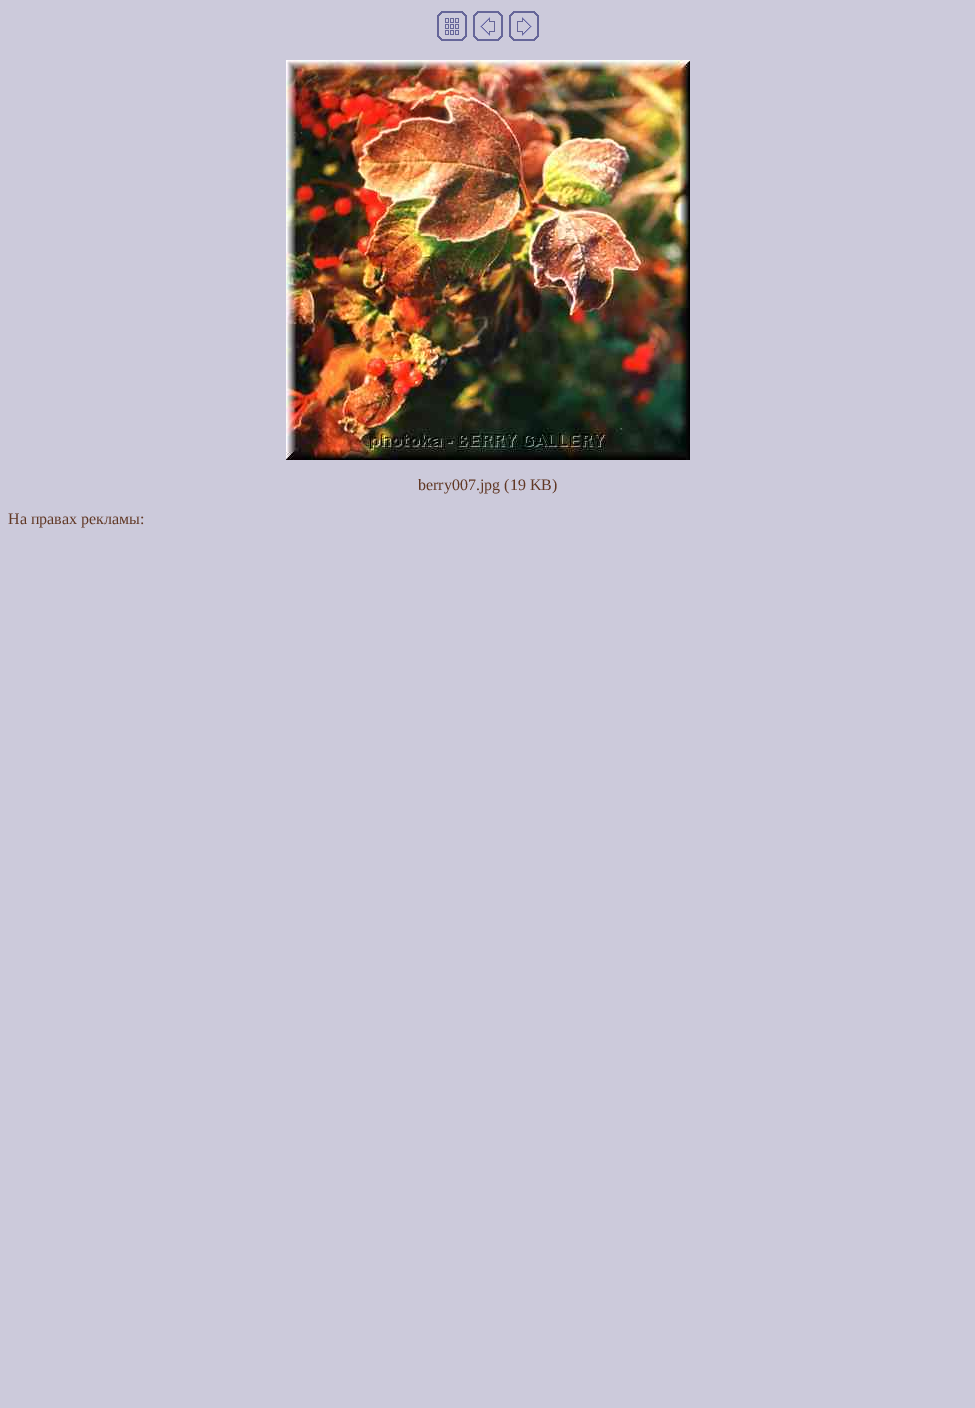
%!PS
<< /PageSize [975 1408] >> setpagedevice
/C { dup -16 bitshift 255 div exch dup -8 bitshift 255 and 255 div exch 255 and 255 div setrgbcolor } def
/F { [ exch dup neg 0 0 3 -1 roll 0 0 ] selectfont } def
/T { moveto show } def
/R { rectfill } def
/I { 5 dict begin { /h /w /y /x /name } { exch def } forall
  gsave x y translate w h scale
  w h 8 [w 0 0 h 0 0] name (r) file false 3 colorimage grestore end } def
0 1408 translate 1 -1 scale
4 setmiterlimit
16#CCCADB C
0 0 975 1408 R
(1.rgb) 437 11 30 30 I
(2.rgb) 473 11 30 30 I
(3.rgb) 509 11 30 30 I
(4.rgb) 286 60 404 400 I
/LiberationSerif-Regular 16 F
16#613825 C
(berry007.jpg \(19 KB\)) 418 490 T
(На правах рекламы:) 8 524 T
showpage
